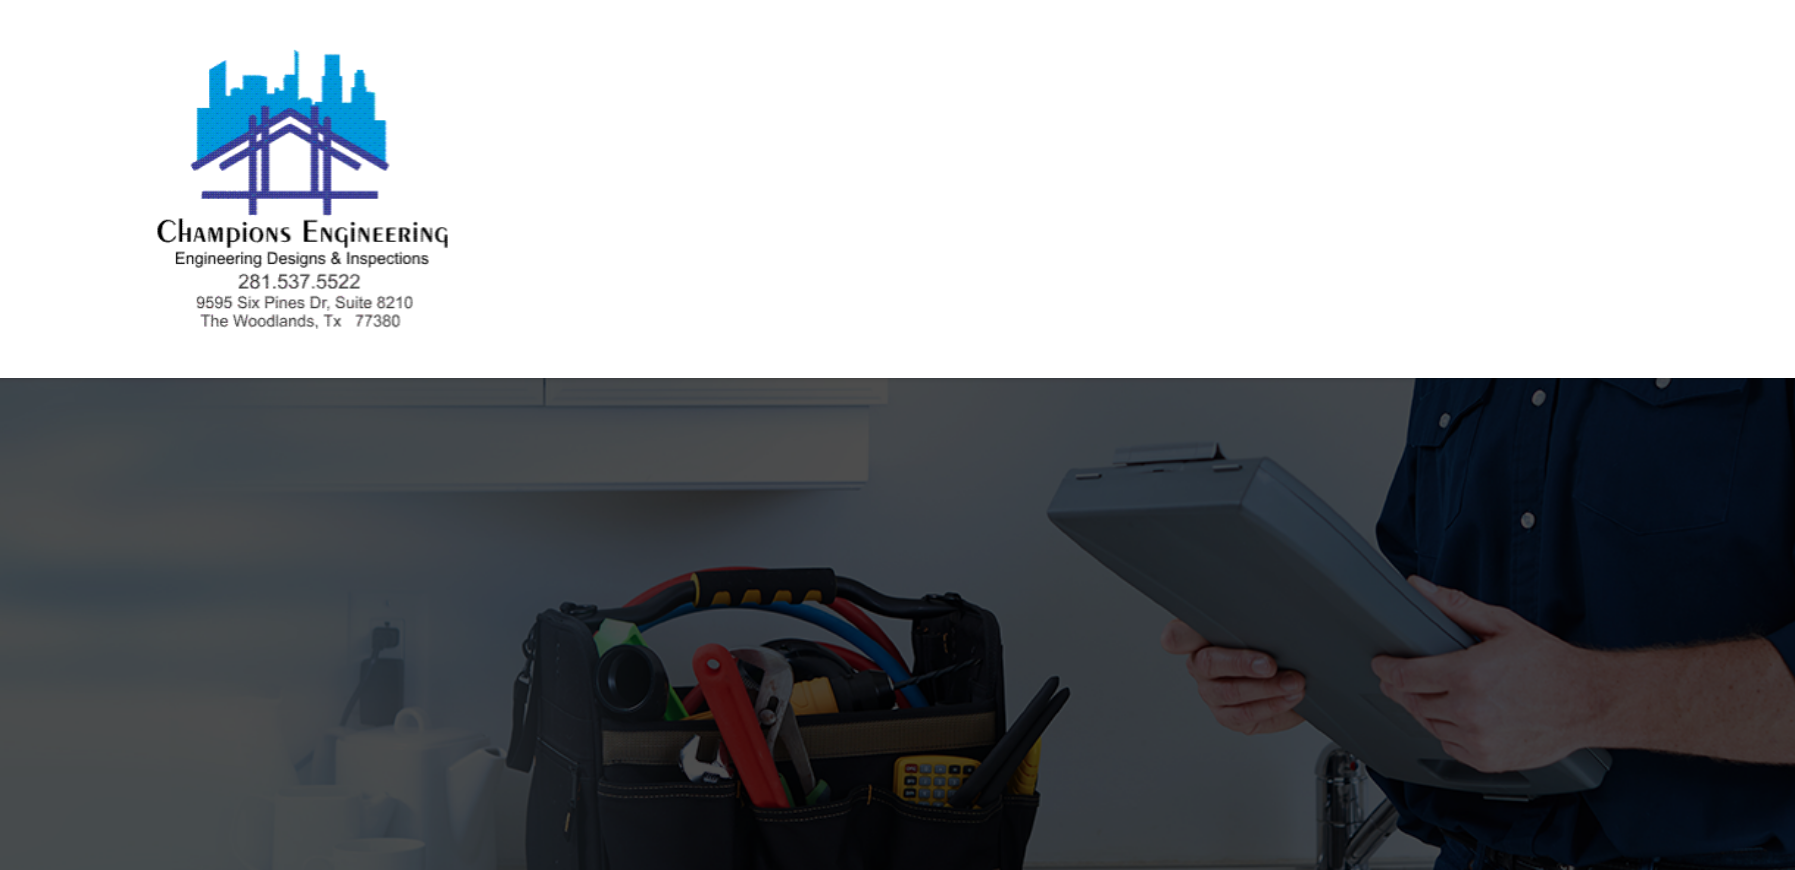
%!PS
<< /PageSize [1795 870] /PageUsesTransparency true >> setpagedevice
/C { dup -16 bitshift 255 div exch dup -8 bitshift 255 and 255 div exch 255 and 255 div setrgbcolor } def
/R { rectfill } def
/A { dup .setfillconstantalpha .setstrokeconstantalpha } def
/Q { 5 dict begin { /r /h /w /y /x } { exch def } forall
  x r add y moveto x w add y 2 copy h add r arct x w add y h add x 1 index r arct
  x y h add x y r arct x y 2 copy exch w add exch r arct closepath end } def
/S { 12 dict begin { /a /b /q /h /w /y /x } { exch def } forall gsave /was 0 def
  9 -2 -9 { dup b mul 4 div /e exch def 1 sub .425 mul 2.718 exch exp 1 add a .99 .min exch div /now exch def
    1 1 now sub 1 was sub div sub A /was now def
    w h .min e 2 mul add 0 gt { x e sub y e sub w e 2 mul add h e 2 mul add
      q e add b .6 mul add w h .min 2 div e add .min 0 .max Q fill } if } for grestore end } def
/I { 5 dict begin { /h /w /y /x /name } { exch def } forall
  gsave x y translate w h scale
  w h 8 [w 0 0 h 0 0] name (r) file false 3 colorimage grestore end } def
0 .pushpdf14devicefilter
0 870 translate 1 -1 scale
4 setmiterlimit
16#FFFFFF C
0 0 1795 870 R
(2.rgb) 0 378 1795 492 I
16#000000 C
0 0 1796 378 0 2.5 .22 S
16#FFFFFF C
0 0 1795 378 R
(1.rgb) 157 49 291 280 I
.poppdf14devicefilter showpage
